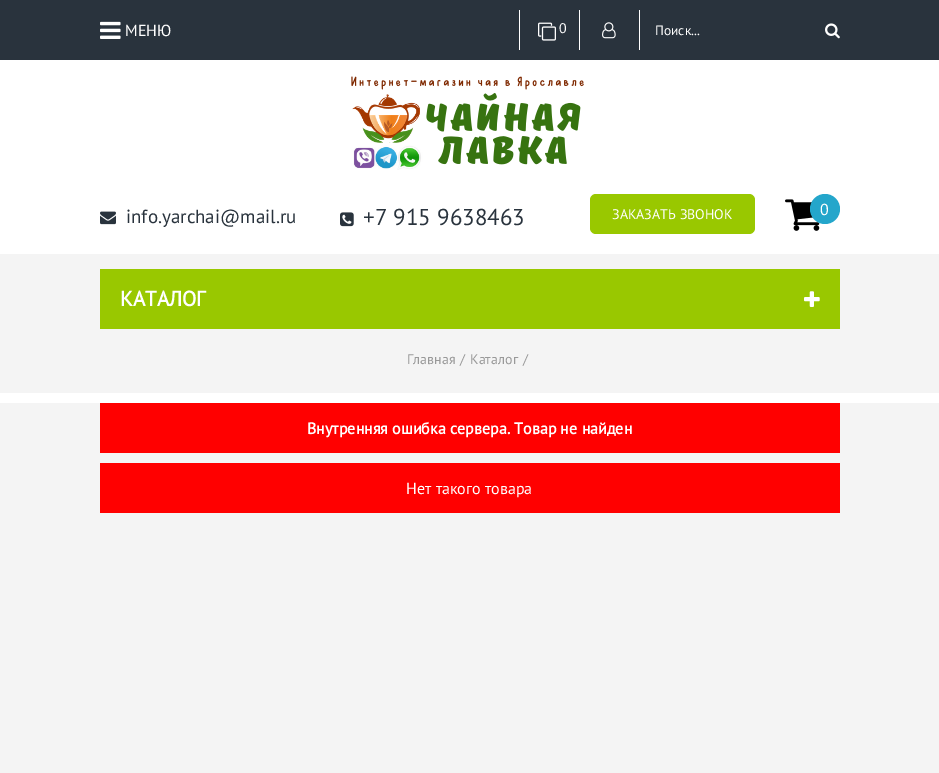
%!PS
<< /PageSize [939 773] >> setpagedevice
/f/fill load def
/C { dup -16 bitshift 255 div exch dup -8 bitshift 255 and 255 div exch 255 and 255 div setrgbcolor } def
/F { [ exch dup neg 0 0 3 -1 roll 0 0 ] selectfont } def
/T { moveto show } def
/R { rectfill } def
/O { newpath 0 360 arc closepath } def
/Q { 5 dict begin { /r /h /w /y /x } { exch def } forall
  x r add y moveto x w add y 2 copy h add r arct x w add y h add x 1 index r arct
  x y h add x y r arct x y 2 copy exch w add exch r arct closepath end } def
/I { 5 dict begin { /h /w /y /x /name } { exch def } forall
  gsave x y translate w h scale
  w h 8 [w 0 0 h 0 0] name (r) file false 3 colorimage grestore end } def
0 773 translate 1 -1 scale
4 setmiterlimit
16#FFFFFF C
0 0 939 773 R
16#29333D C
0 0 939 60 R
(1.rgb) 100 21 21 18 I
/PTSans-Regular 16 F
16#FFFFFF C
(МЕНЮ) 125 36 T
519 10 1 40 R
(2.rgb) 538 22 18 19 I
/PTSans-Regular 14 F
(0) 559 33 T
579 10 1 40 R
(3.rgb) 602 22 14 17 I
639 10 1 40 R
/PTSans-Regular 13.5 F
(Поиск...) 655 35 T
(4.rgb) 825 23 15 16 I
(5.rgb) 351 76 233 94 I
(6.rgb) 100 211 16 14 I
/PTSans-Regular 19 F
16#29333D C
(info.yarchai@mail.ru) 126 223 T
(7.rgb) 340 212 14 15 I
/PTSans-Regular 23 F
(+7 915 9638463) 363 225 T
16#99C800 C
590 194 165 40 6 Q f
/PTSans-Regular 14 F
16#FFFFFF C
(ЗАКАЗАТЬ ЗВОНОК) 612 219 T
(8.rgb) 785 199 35 32 I
16#24A6CB C
825 209 15 O f
/PTSans-Regular 16 F
16#FFFFFF C
(0) 820 215 T
16#F4F4F4 C
0 254 939 139 R
16#99C800 C
100 269 740 60 R
/PTSans-Bold 21 F
16#FFFFFF C
(КАТАЛОГ) 120 306 T
(9.rgb) 804 291 16 16 I
/PTSans-Regular 14 F
16#999999 C
(Главная) 407 364 T
(/) 460 364 T
(Каталог) 470 364 T
(/) 523 364 T
16#F4F4F4 C
0 403 939 370 R
16#FF0000 C
100 403 740 50 R
/PTSans-Bold 16 F
16#FFFFFF C
(Внутренняя ошибка сервера. Товар не найден) 307 434 T
16#FF0000 C
100 463 740 50 R
/PTSans-Regular 16 F
16#FFFFFF C
(Нет такого товара) 406 494 T
showpage
